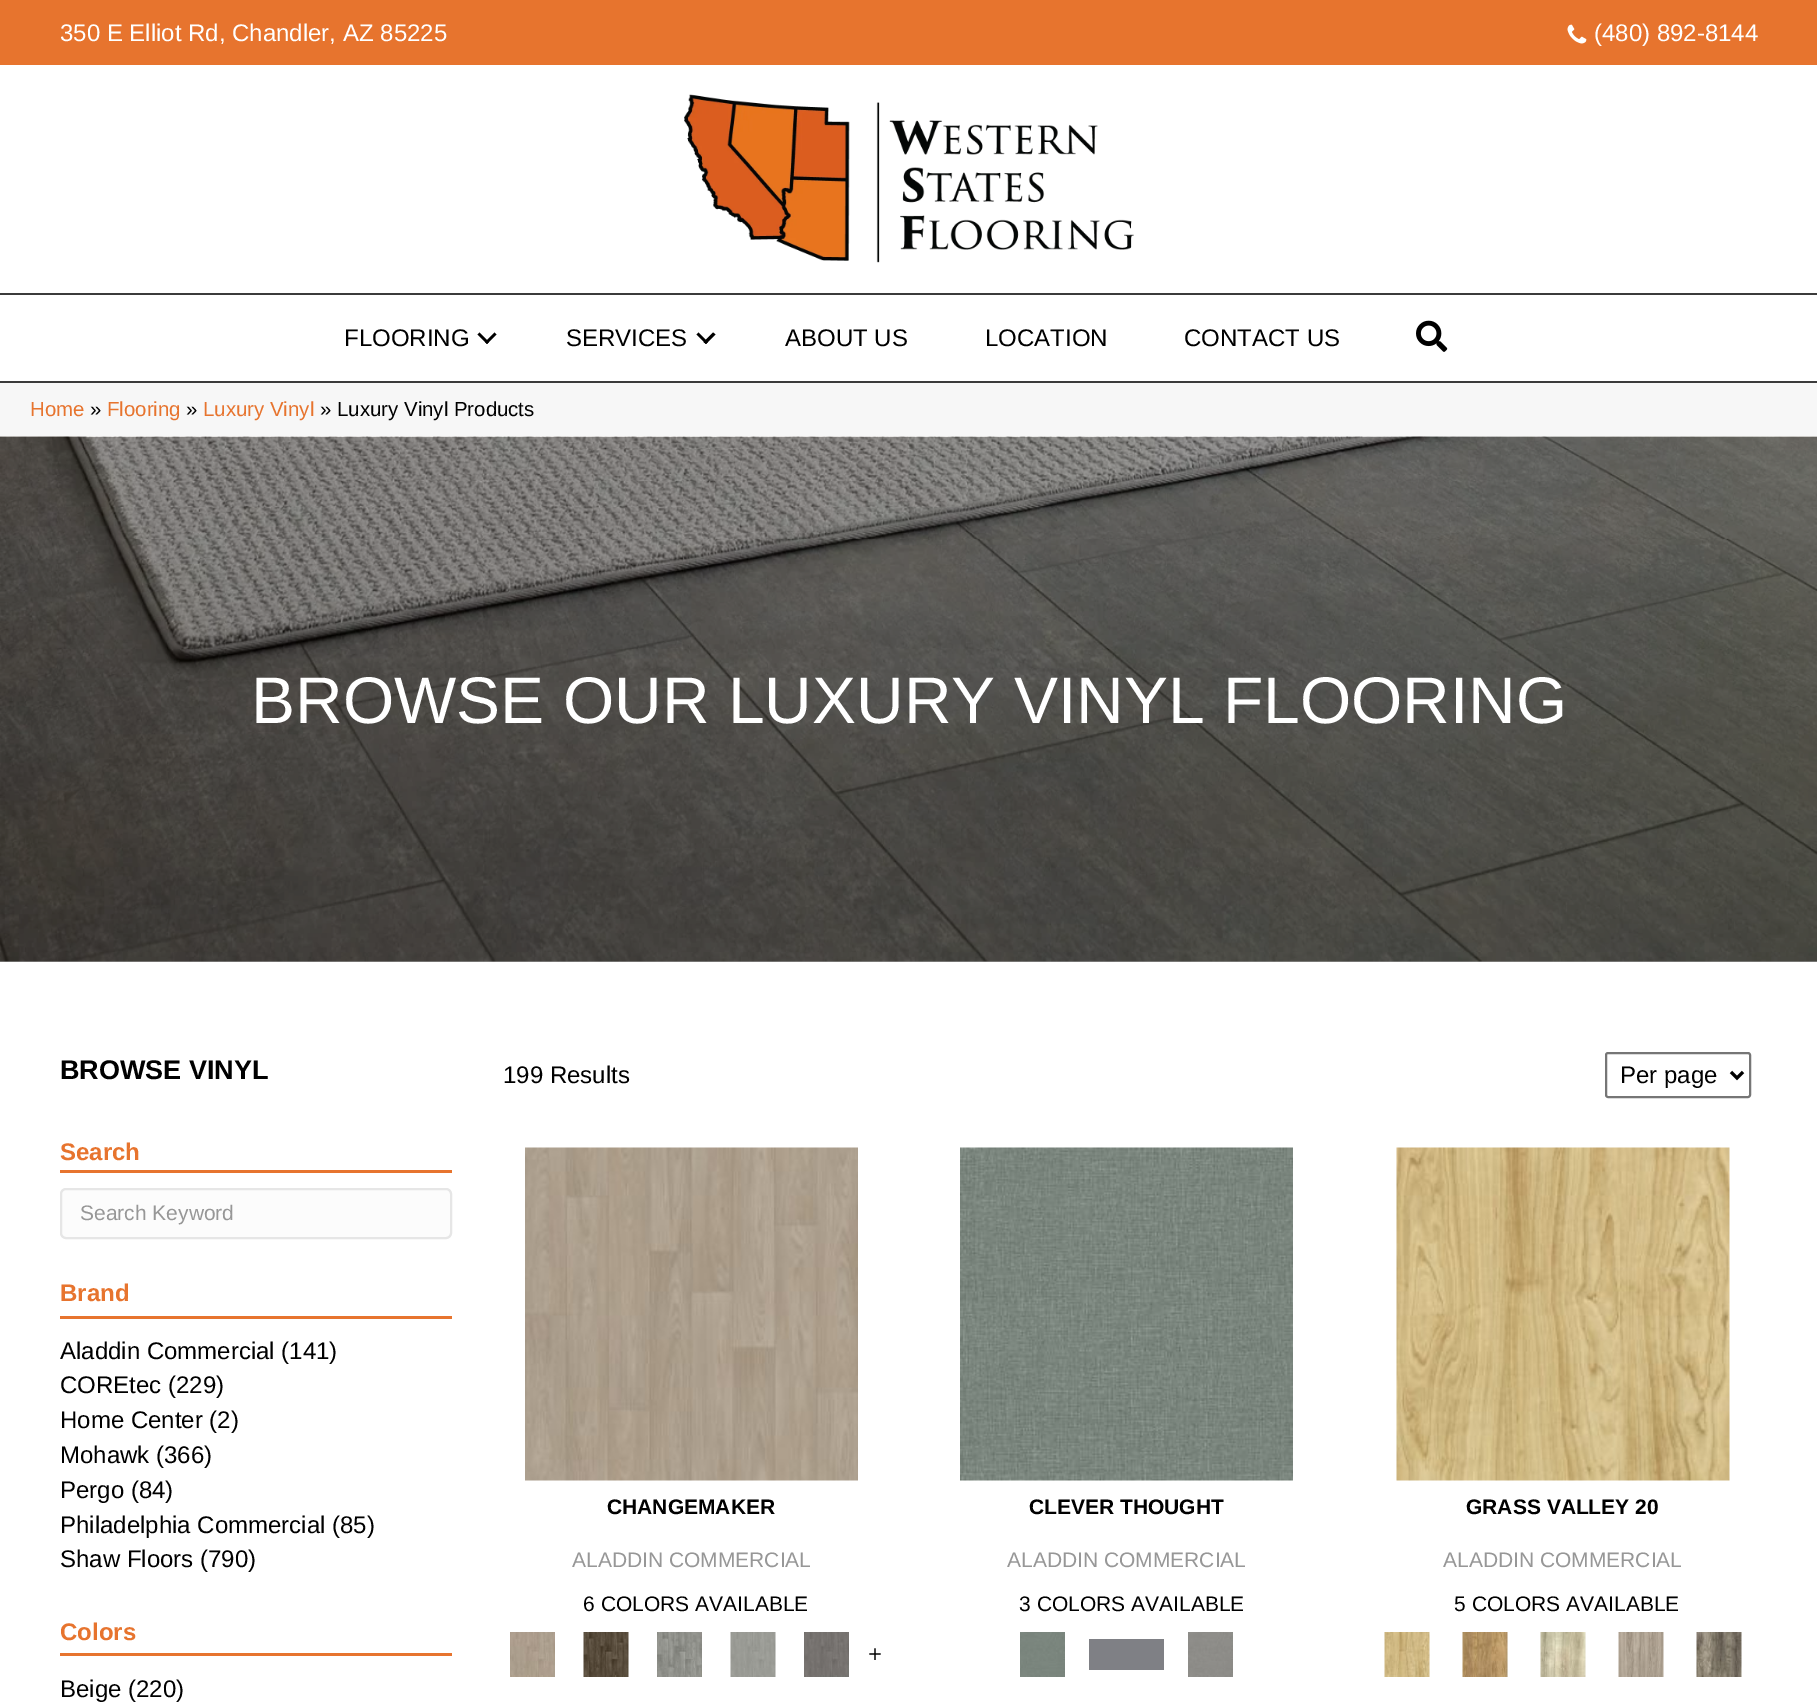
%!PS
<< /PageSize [1817 1706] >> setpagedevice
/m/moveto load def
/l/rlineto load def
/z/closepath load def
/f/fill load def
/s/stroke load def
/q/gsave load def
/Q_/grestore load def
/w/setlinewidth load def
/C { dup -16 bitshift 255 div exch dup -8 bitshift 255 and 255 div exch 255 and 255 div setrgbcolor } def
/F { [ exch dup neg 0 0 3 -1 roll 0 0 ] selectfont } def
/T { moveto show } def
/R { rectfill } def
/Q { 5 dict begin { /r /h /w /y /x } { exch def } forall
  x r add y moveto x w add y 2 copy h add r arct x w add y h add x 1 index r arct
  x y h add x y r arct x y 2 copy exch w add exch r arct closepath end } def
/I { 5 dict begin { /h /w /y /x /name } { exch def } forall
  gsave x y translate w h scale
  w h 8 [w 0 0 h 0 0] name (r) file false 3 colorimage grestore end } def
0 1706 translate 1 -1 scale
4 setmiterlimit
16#FFFFFF C
0 0 1817 1706 R
16#A6A6A6 C
0 961 1817 1 R
16#E7742E C
0 0 1817 65 R
/LiberationSans-Regular 24 F
16#FFFFFF C
(350 E Elliot Rd, Chandler, AZ 85225) 60 41 T
(1.rgb) 1567 24 20 20 I
(\(480\) 892-8144) 1594 41 T
(2.rgb) 684 94 450 169 I
16#3B3B3B C
0 293 1817 2 R
0 381 1817 2 R
16#000000 C
(FLOORING) 344 346 T
494.5 332.5 m 2 2 l -9.5 9.5 l -2 -2 l z f
479.5 332.5 m 9.5 9.5 l -2 2 l -9.5 -9.5 l z f
(SERVICES) 566 346 T
713 332.5 m 2.5 2 l -9.5 9.5 l -2.5 -2 l z f
698.5 332.5 m 9.5 9.5 l -2 2 l -9.5 -9.5 l z f
(ABOUT US) 785 346 T
(LOCATION) 985 346 T
(CONTACT US) 1184 346 T
(3.rgb) 1416 320 32 32 I
16#F7F7F7 C
0 383 1817 54 R
/LiberationSans-Regular 20.4 F
16#E7742E C
(Home) 30 416 T
16#000000 C
(») 90 416 T
16#E7742E C
(Flooring) 107 416 T
16#000000 C
(») 186 416 T
16#E7742E C
(Luxury Vinyl) 203 416 T
16#000000 C
(» Luxury Vinyl Products) 320 416 T
(4.rgb) 0 436 1817 526 I
/LiberationSans-Regular 66 F
16#FFFFFF C
(BROWSE OUR LUXURY VINYL FLOORING) 251 723 T
/LiberationSans-Bold 27 F
16#000000 C
(BROWSE VINYL) 60 1079 T
/LiberationSans-Regular 24 F
(199 Results) 503 1083 T
16#767676 C
2 w
1606 1053 144 44 2 Q s
16#000000 C
3 w
1731 1072 m 6 6 l 6 -6 l s
(Per page) 1620 1083 T
16#E7742E C
60 1170 392 3 R
/LiberationSans-Bold 24 F
(Search) 60 1160 T
16#FCFCFC C
61 1189 390 49 5 Q q f Q_
16#E6E6E6 C
2 w
s
/LiberationSans-Regular 21 F
16#979797 C
(Search Keyword) 80 1220 T
16#E7742E C
60 1316 392 3 R
/LiberationSans-Bold 24 F
(Brand) 60 1301 T
/LiberationSans-Regular 24 F
16#000000 C
(Aladdin Commercial \(141\)) 60 1359 T
(COREtec \(229\)) 60 1393 T
(Home Center \(2\)) 60 1428 T
(Mohawk \(366\)) 60 1463 T
(Pergo \(84\)) 60 1498 T
(Philadelphia Commercial \(85\)) 60 1533 T
(Shaw Floors \(790\)) 60 1567 T
16#E7742E C
60 1653 392 3 R
/LiberationSans-Bold 24 F
(Colors) 60 1640 T
/LiberationSans-Regular 24 F
16#000000 C
(Beige \(220\)) 60 1697 T
(5.rgb) 525 1147 333 334 I
/LiberationSans-Bold 21 F
(CHANGEMAKER) 607 1514 T
/LiberationSans-Regular 21 F
16#979797 C
(ALADDIN COMMERCIAL) 572 1567 T
16#000000 C
(6 COLORS AVAILABLE) 583 1611 T
(6.rgb) 510 1632 45 45 I
(7.rgb) 583 1632 46 45 I
(8.rgb) 657 1632 45 45 I
(9.rgb) 730 1632 46 45 I
(10.rgb) 804 1632 45 45 I
/LiberationSans-Regular 24 F
(+) 868 1662 T
(11.rgb) 960 1147 333 334 I
/LiberationSans-Bold 21 F
(CLEVER THOUGHT) 1029 1514 T
/LiberationSans-Regular 21 F
16#979797 C
(ALADDIN COMMERCIAL) 1007 1567 T
16#000000 C
(3 COLORS AVAILABLE) 1019 1611 T
(12.rgb) 1020 1632 45 45 I
16#7F8085 C
1089 1639 75 31 R
(13.rgb) 1188 1632 45 45 I
(14.rgb) 1396 1147 334 334 I
/LiberationSans-Bold 21 F
16#000000 C
(GRASS VALLEY 20) 1466 1514 T
/LiberationSans-Regular 21 F
16#979797 C
(ALADDIN COMMERCIAL) 1443 1567 T
16#000000 C
(5 COLORS AVAILABLE) 1454 1611 T
(15.rgb) 1384 1632 46 45 I
(16.rgb) 1462 1632 46 45 I
(17.rgb) 1540 1632 46 45 I
(18.rgb) 1618 1632 46 45 I
(19.rgb) 1696 1632 46 45 I
showpage
